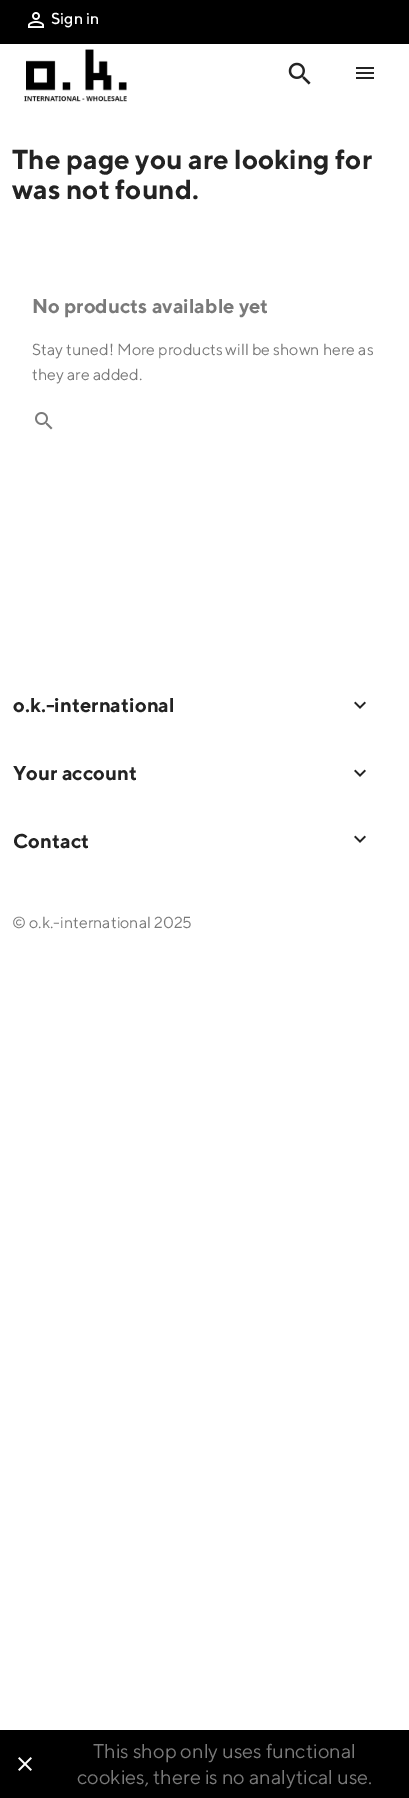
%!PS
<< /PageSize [409 1798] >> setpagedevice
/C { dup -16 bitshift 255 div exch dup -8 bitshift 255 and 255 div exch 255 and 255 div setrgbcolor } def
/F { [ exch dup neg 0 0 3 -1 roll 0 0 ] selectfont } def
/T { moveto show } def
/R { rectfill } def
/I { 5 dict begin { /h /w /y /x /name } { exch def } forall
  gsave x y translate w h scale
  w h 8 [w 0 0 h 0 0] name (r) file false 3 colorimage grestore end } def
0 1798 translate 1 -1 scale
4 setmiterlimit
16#FFFFFF C
0 0 409 1798 R
16#000000 C
0 0 409 44 R
(1.rgb) 28 12 16 16 I
/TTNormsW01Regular-Medium 16 F
16#FFFFFF C
(Sign in) 51 24 T
(2.rgb) 24 49 103 53 I
(3.rgb) 288 62 23 23 I
(4.rgb) 356 67 18 12 I
/TTNormsW01Regular-Bold 27.5 F
16#232323 C
(The page you are looking for) 12 169 T
(was not found.) 12 199 T
/TTNormsW01Regular-Bold 20 F
16#7A7A7A C
(No products available yet) 32 313 T
/TTNormsW01Regular-Regular 16 F
(Stay tuned! More products will be shown here as) 32 355 T
(they are added.) 32 380 T
(5.rgb) 35 412 18 18 I
/TTNormsW01Regular-Bold 20 F
16#232323 C
(o.k.-international) 13 712 T
(6.rgb) 354 701 12 8 I
(Your account) 13 780 T
(6.rgb) 354 769 12 8 I
(Contact) 13 848 T
(6.rgb) 354 835 12 8 I
16#000000 C
0 1730 409 68 R
(7.rgb) 18 1757 14 14 I
/TTNormsW01Regular-Regular 20 F
16#7A7A7A C
(This shop only uses functional) 93 1758 T
(cookies, there is no analytical use.) 77 1784 T
/TTNormsW01Regular-Regular 16 F
(© o.k.-international 2025) 12 928 T
showpage
